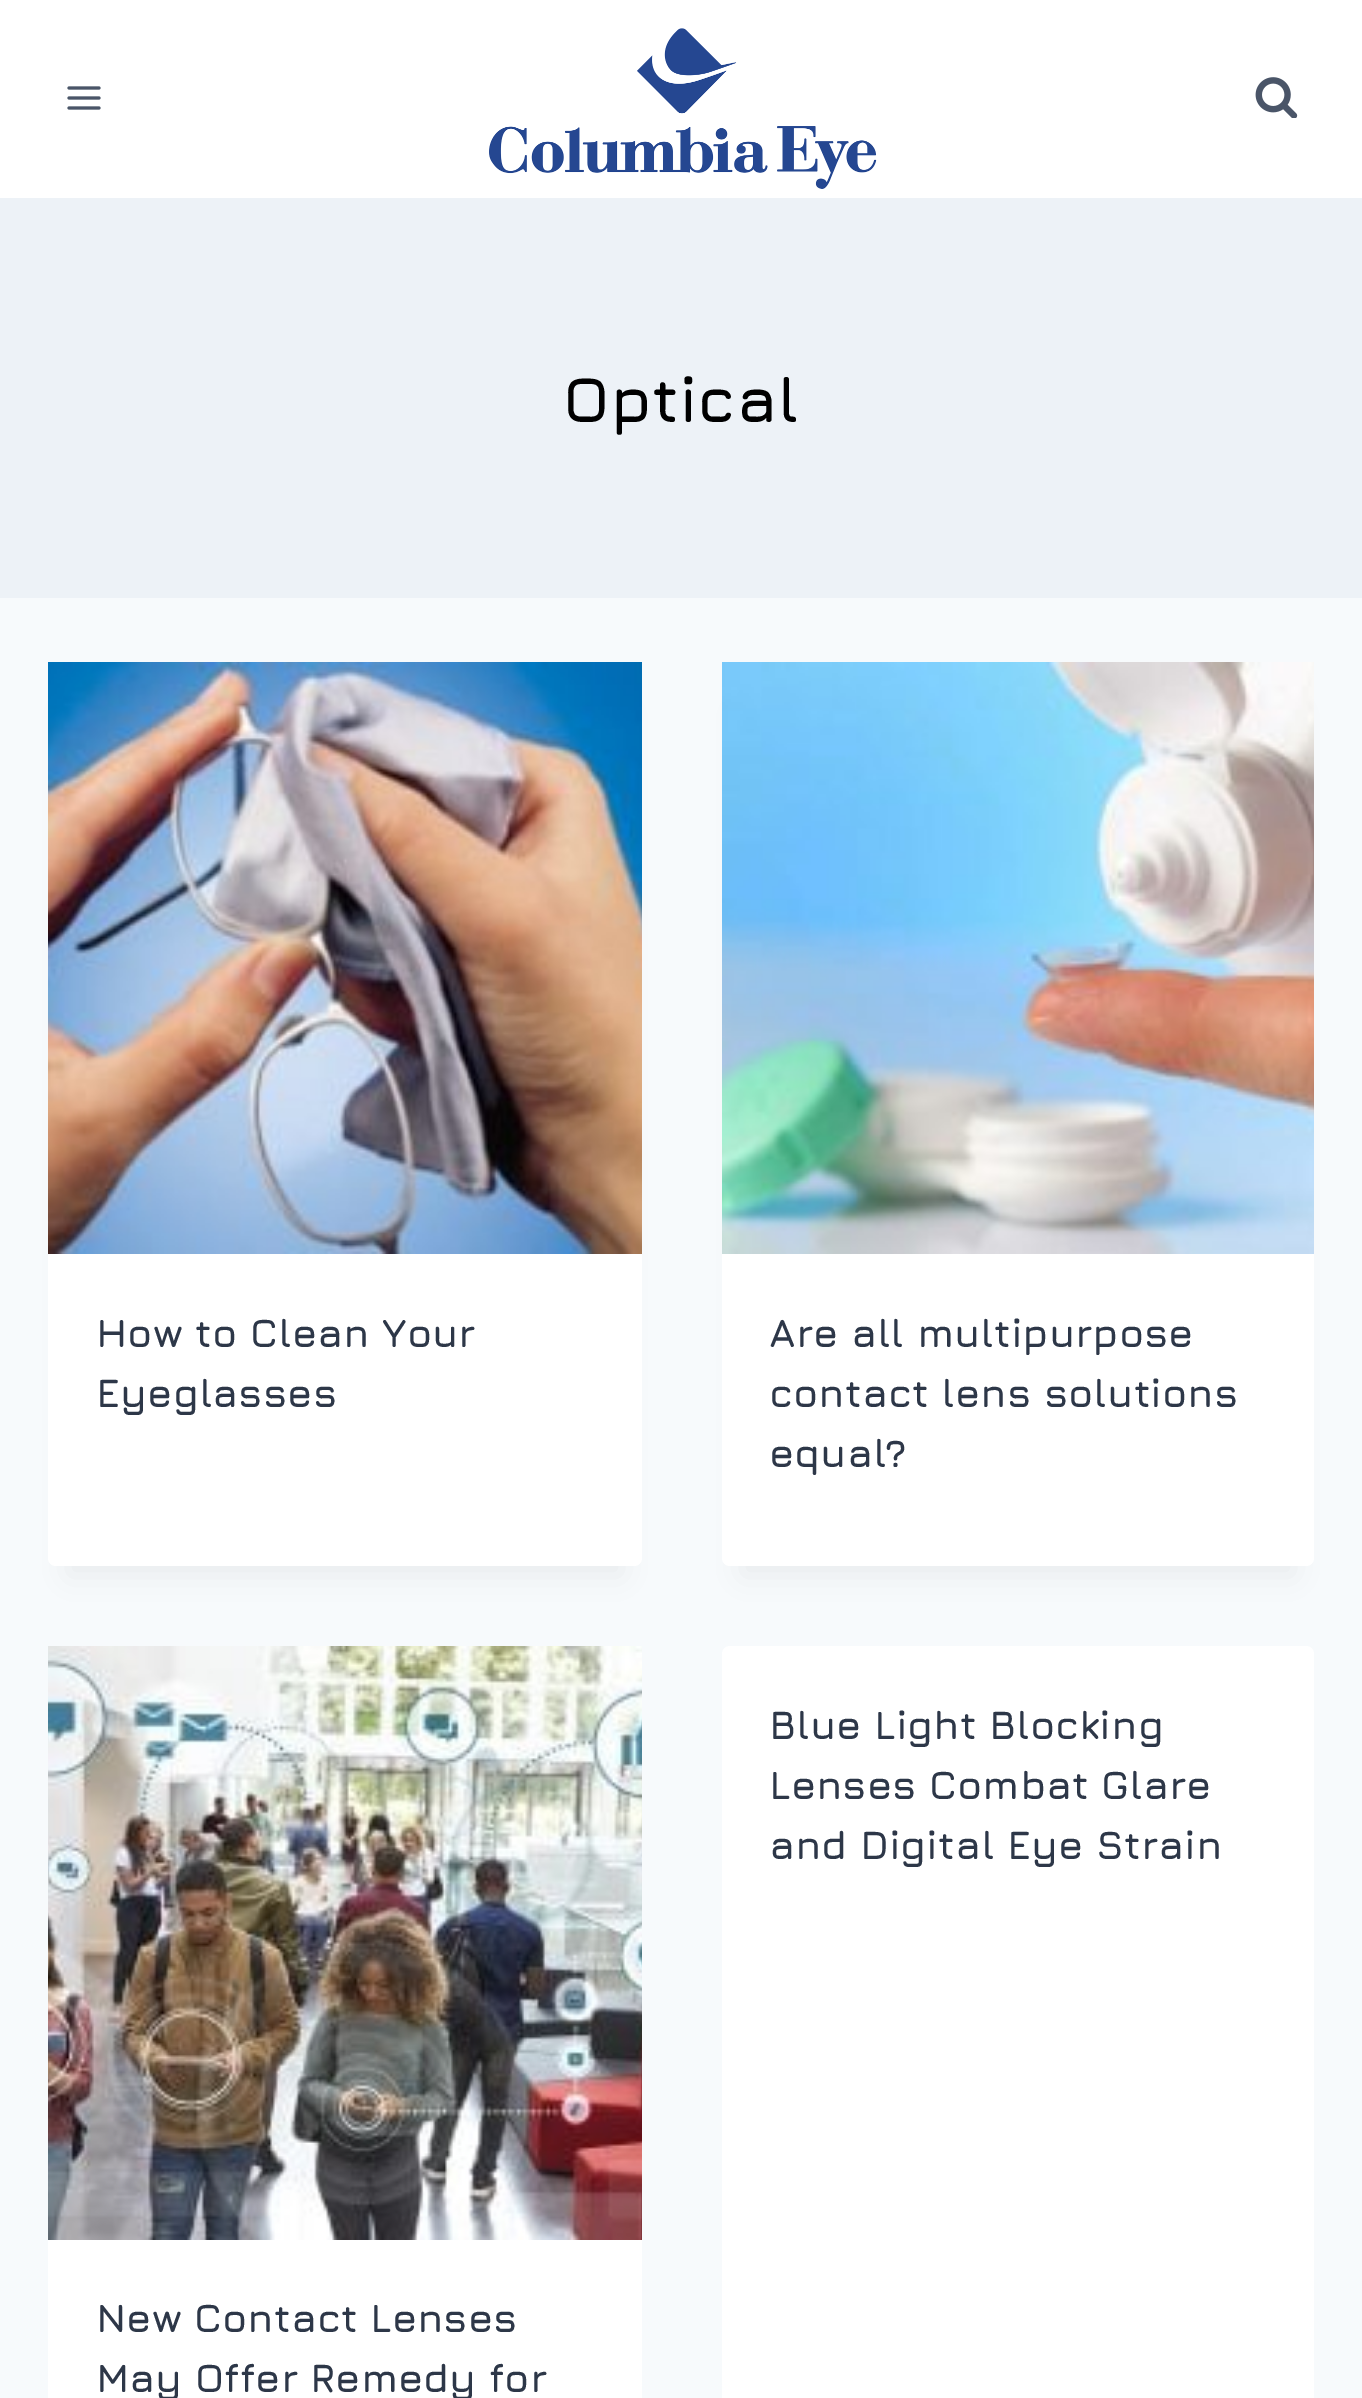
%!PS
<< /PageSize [1362 2398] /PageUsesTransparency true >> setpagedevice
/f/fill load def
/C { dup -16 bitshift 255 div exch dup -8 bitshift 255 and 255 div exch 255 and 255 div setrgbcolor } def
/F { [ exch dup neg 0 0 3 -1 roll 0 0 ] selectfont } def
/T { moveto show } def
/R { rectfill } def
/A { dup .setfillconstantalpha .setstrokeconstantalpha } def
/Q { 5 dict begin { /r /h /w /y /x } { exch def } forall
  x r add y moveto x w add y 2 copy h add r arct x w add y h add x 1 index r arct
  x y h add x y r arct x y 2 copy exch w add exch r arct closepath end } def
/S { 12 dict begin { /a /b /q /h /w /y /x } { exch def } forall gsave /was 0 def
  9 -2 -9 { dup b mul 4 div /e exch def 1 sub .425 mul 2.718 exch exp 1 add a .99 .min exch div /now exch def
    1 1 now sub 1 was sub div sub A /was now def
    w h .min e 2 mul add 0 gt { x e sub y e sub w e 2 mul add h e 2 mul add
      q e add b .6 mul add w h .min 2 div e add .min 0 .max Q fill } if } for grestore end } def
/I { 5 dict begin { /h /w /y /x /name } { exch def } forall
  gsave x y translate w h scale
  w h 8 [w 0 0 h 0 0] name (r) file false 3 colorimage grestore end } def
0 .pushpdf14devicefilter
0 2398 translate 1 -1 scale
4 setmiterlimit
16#F7FAFC C
0 0 1362 2398 R
16#FFFFFF C
0 0 1362 198 R
(1.rgb) 67 86 34 24 I
(2.rgb) 489 28 388 161 I
(3.rgb) 1255 77 43 41 I
16#EDF2F7 C
0 198 1362 400 R
/Jura-Bold 64 F
16#000000 C
(Optical) 563 422 T
68 712 554 864 0 15 .05 S
16#FFFFFF C
48 662 594 904 8 Q f
(4.rgb) 48 662 594 592 I
/Jura-Bold 40 F
16#2D3748 C
(How to Clean Your) 96 1347 T
(Eyeglasses) 96 1407 T
16#000000 C
742 712 552 864 0 15 .05 S
16#FFFFFF C
722 662 592 904 8 Q f
(5.rgb) 722 662 592 592 I
16#2D3748 C
(Are all multipurpose) 769 1347 T
(contact lens solutions) 769 1407 T
(equal?) 769 1467 T
16#FFFFFF C
722 1646 592 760 8 Q f
16#2D3748 C
(Blue Light Blocking) 769 1739 T
(Lenses Combat Glare) 769 1799 T
(and Digital Eye Strain) 769 1859 T
16#FFFFFF C
48 2240 594 158 R
(6.rgb) 48 1646 594 594 I
16#2D3748 C
(New Contact Lenses) 96 2332 T
(May Offer Remedy for) 96 2392 T
.poppdf14devicefilter showpage
